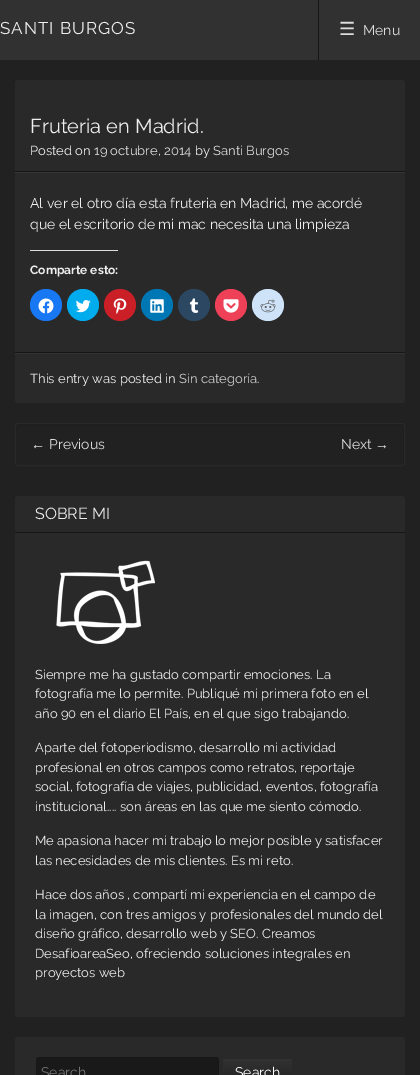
%!PS
<< /PageSize [420 1075] >> setpagedevice
/m/moveto load def
/l/rlineto load def
/c/rcurveto load def
/z/closepath load def
/f/fill load def
/s/stroke load def
/q/gsave load def
/Q_/grestore load def
/C { dup -16 bitshift 255 div exch dup -8 bitshift 255 and 255 div exch 255 and 255 div setrgbcolor } def
/F { [ exch dup neg 0 0 3 -1 roll 0 0 ] selectfont } def
/T { moveto show } def
/R { rectfill } def
/O { newpath 0 360 arc closepath } def
/Q { 5 dict begin { /r /h /w /y /x } { exch def } forall
  x r add y moveto x w add y 2 copy h add r arct x w add y h add x 1 index r arct
  x y h add x y r arct x y 2 copy exch w add exch r arct closepath end } def
/I { 5 dict begin { /h /w /y /x /name } { exch def } forall
  gsave x y translate w h scale
  w h 8 [w 0 0 h 0 0] name (r) file false 3 colorimage grestore end } def
0 1075 translate 1 -1 scale
4 setmiterlimit
16#212121 C
0 0 420 1075 R
16#313131 C
0 0 420 60 R
/Raleway-Regular 17 F
16#EEEEEE C
0 34 m 1 0 (SANTI BURGOS) ashow
16#161616 C
318 0 1 60 R
/DejaVuSans-Regular 18 F
16#DDDDDD C
(☰) 339 35 T
/Raleway-Regular 14 F
(Menu) 363 35 T
16#292929 C
15 80 390 323 3 Q f
16#161616 C
15 171 390 1 R
/Raleway-Regular 20 F
16#EEEEEE C
(Fruteria en Madrid.) 30 133 T
/Raleway-Regular 13 F
(Posted on) 30 155 T
16#DDDDDD C
(19 octubre, 2014) 94 155 T
16#EEEEEE C
(by) 195 155 T
16#DDDDDD C
(Santi Burgos) 213 155 T
16#363636 C
15 172 390 1 R
16#161616 C
15 352 390 1 R
/Raleway-Regular 14 F
16#EEEEEE C
(Al ver el otro día esta fruteria en Madrid, me acordé) 30 208 T
(que el escritorio de mi mac necesita una limpieza) 30 229 T
16#DDDDDD C
30 250 88 1 R
/Raleway-Bold 12 F
16#EEEEEE C
(Comparte esto:) 30 274 T
16#1877F2 C
46 305 16 O f
(1.rgb) 38 298 16 16 I
16#00ACEE C
83 305 16 O f
(2.rgb) 75 300 16 13 I
16#CA1F27 C
120 305 16 O f
(3.rgb) 113 298 14 16 I
16#0077B5 C
157 305 16 O f
(4.rgb) 150 299 14 14 I
16#2C4762 C
194 305 16 O f
(5.rgb) 189 298 10 15 I
16#EE4056 C
231 305 16 O f
(6.rgb) 223 299 16 14 I
16#CEE3F8 C
268 305 16 O f
(7.rgb) 260 299 16 14 I
16#333333 C
15 353 390 1 R
/Raleway-Regular 13 F
16#EEEEEE C
(This entry was posted in) 30 383 T
16#CCCCCC C
(Sin categoría) 179 383 T
16#EEEEEE C
(.) 257 383 T
16#1E1E1E C
18 426 m 384 0 l 1 0 1 0 1 1 c 0 38 l 1 -1 1 -1 1 -2 c 0 -37 l 0 -1 -1 -2 -2 -2 c -384 0 l -1 0 -2 1 -2 2 c 0 37 l 0 1 0 1 1 2 c 0 -38 l 0 -1 0 -1 1 -1 c z f
16#292929 C
15.5 423.5 389 42 2.5 Q s
/LiberationSans-Regular 14 F
16#DDDDDD C
(←) 31 449 T
/Raleway-Regular 14 F
(Previous) 49 449 T
(Next) 341 449 T
/LiberationSans-Regular 14 F
(→) 375 449 T
16#292929 C
15 496 390 521 3 Q f
16#161616 C
15 532 390 1 R
/Raleway-Regular 16 F
16#EEEEEE C
(SOBRE MI) 35 519 T
(8.rgb) 56 560 99 84 I
/Raleway-Regular 13 F
(Siempre me ha gustado compartir emociones. La) 35 679 T
(fotografía me lo permite. Publiqué mi primera foto en el) 35 698 T
(año 90 en el diario El País, en el que sigo trabajando.) 35 718 T
(Aparte del fotoperiodismo, desarrollo mi actividad) 35 752 T
(profesional en otros campos como retratos, reportaje) 35 772 T
(social, fotografía de viajes, publicidad, eventos, fotografía) 35 791 T
(institucional.... son áreas en las que me siento cómodo.) 35 811 T
(Me apasiona hacer mi trabajo lo mejor posible y satisfacer) 35 845 T
(las necesidades de mis clientes. Es mi reto.) 35 865 T
(Hace dos años , compartí mi experiencia en el campo de) 35 899 T
(la imagen, con tres amigos y profesionales del mundo del) 35 919 T
(diseño gráfico, desarrollo web y SEO. Creamos) 35 938 T
(DesafioareaSeo, ofreciendo soluciones integrales en) 35 958 T
(proyectos web) 35 977 T
16#292929 C
15 1037 390 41 3 Q f
16#191919 C
35 1057 185 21 3 Q f
16#171717 C
38 1059 m 179 0 l 2 0 1 10 1 11 c 0 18 l 1 -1 1 -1 1 -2 c 0 -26 l 0 -2 -1 -3 -2 -3 c -179 0 l -1 0 -2 1 -2 3 c 0 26 l 0 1 0 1 1 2 c 0 -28 l z f
16#292929 C
38 1057 m 179 0 l 2 0 3 1 3 3 c 0 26 l 0 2 -1 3 -3 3 c -179 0 l -2 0 -3 -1 -3 -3 c 0 -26 l 0 -2 1 -3 3 -3 c z 38 1057 m 179 0 l 1 0 2 1 2 3 c 0 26 l 0 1 -1 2 -2 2 c -179 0 l -1 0 -2 -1 -2 -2 c 0 -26 l 0 -2 1 -3 2 -3 c z eofill
/Raleway-Regular 14 F
16#757575 C
(Search) 41 1077 T
q
223 1059 69 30 3 Q clip newpath
q 226 1059 m 63 0 l 1.5 0 3 1.5 3 3 c 0 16 l -69 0 l 0 -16 l 0 -1.5 1.5 -3 3 -3 c z clip newpath
<< /ShadingType 2 /ColorSpace /DeviceRGB /Coords [258 1059 258 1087] /Extend [true true] /Function << /FunctionType 2 /Domain [0 1] /C0 [.196 .196 .196] /C1 [.129 .129 .129] /N 1 >> >> shfill Q_
Q_
16#FFFFFF C
(Search) 235 1077 T
showpage
